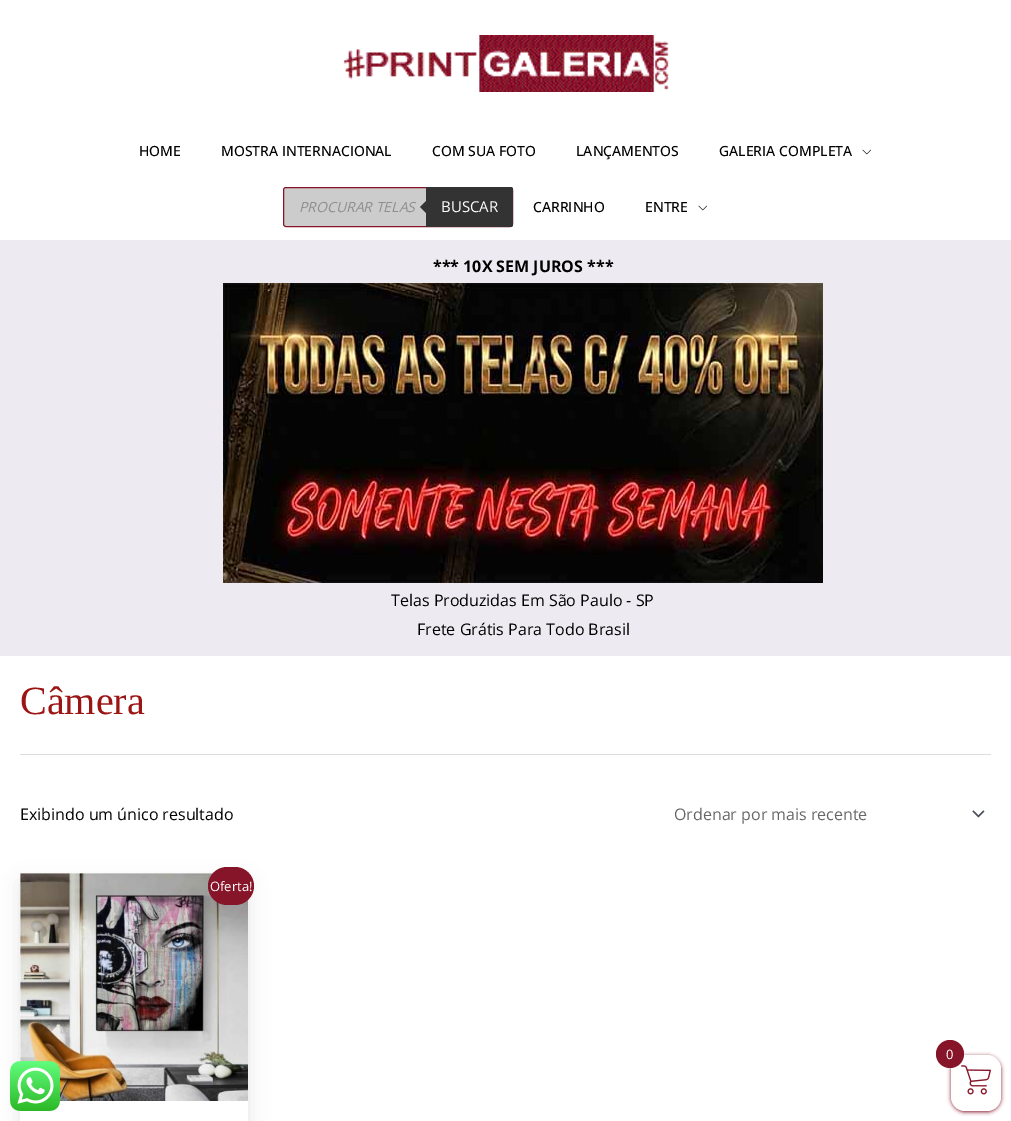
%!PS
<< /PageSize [1011 1121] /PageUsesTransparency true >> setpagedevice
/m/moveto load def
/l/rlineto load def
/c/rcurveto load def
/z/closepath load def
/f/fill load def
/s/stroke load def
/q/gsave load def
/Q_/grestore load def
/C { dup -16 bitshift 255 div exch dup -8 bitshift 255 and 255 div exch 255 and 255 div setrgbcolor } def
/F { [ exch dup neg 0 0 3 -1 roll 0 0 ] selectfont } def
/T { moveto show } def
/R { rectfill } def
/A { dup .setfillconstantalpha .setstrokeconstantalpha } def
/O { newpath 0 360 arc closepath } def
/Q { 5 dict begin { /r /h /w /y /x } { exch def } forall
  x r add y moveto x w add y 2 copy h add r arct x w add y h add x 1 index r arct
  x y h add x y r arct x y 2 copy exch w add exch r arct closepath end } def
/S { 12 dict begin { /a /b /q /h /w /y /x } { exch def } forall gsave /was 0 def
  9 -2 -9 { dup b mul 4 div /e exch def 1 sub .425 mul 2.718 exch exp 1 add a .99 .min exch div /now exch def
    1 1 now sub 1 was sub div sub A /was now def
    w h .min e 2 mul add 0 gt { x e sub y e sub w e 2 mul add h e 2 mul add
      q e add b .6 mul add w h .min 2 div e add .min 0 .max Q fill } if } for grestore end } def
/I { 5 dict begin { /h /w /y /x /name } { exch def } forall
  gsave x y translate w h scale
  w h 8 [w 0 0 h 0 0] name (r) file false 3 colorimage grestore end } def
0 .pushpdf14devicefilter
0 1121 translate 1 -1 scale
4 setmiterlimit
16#FFFFFF C
0 0 1011 1121 R
(1.rgb) 343 35 326 57 I
/OpenSans-Medium 14 F
16#000000 C
(HOME) 139 156 T
(MOSTRA INTERNACIONAL) 221 156 T
(COM SUA FOTO) 432 156 T
(LANÇAMENTOS) 576 156 T
(GALERIA COMPLETA) 719 156 T
(2.rgb) 862 149 9 6 I
16#CCCCCC C
283.5 187.5 229 39 2.5 Q q f Q_
16#861529 C
s
/OpenSans-Italic 14 F
16#8F8F8F C
(PROCURAR TELAS) 299 212 T
16#333333 C
426 187 m 85 0 l 1 0 2 1 2 2 c 0 36 l 0 1 -1 2 -2 2 c -85 0 l z f
428 199 m 0 16 l -8 -8 l z f
/OpenSans-Regular 15 F
16#FFFFFF C
(BUSCAR) 441 212 T
/OpenSans-Medium 14 F
16#000000 C
(CARRINHO) 533 212 T
(ENTRE) 645 212 T
(2.rgb) 698 205 9 6 I
16#EEEAF2 C
0 240 1011 416 R
/OpenSans-Bold 16 F
16#000000 C
(*** 10X SEM JUROS ***) 433 272 T
(3.rgb) 223 283 600 300 I
/OpenSans-Regular 16 F
(Telas Produzidas Em São Paulo - SP) 391 606 T
(Frete Grátis Para Todo Brasil) 417 635 T
16#DDDDDD C
20 754 971 1 R
/LiberationSerif-Regular 40 F
16#9C1515 C
(Câmera) 20 714 T
/OpenSans-Regular 16 F
16#000000 C
(Exibindo um único resultado) 20 820 T
(4.rgb) 972 810 13 8 I
16#666666 C
(Ordenar por mais recente) 674 820 T
q
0 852 m 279 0 l 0 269 l -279 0 l z 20 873 m 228 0 l 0 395 l -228 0 l z eoclip newpath
16#000000 C
20 883 228 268 0 10 .1 S
Q_
(5.rgb) 20 873 228 228 I
16#861529 C
208 867 46 38 19 Q f
/OpenSans-Regular 13 F
16#FFFFFF C
(Oferta!) 210 891 T
16#861529 C
951 1056 50 56 14 2 1 S
16#FFFFFF C
951 1055 50 56 14 Q f
(6.rgb) 961 1065 30 30 I
16#861529 C
950 1054 14 O f
16#FFFFFF C
(0) 946 1059 T
(7.rgb) 10 1061 50 50 I
.poppdf14devicefilter showpage
